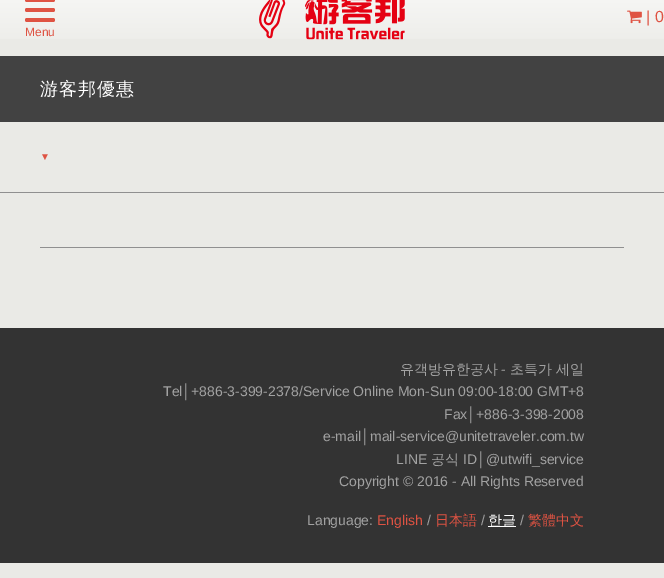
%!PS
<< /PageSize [664 578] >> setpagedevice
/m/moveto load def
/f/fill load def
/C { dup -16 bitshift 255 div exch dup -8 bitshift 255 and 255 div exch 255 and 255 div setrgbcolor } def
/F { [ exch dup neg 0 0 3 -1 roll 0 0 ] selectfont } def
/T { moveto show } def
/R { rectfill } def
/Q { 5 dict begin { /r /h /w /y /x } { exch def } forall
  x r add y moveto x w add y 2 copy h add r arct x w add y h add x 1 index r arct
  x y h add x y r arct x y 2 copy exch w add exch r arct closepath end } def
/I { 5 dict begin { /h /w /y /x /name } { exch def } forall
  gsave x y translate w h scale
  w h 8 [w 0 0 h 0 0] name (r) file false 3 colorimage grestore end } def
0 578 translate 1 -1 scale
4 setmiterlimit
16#EAEAE6 C
0 0 664 578 R
(1.rgb) 0 0 664 39 I
(2.rgb) 259 0 146 40 I
(3.rgb) 627 10 15 14 I
/LiberationSans-Regular 16 F
16#DF5343 C
(| 0) 646 22 T
25 18 30 4 2 Q f
25 8 30 4 2 Q f
25 -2 30 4 2 Q f
/LiberationSans-Regular 12 F
(Menu) 25 36 T
16#424242 C
0 56 664 66 R
/WenQuanYiZenHei-Medium 18 F
16#FFFFFF C
40 95 m 1 0 (游客邦優惠) ashow
16#909090 C
0 192 664 1 R
/LiberationSans-Regular 10 F
16#DF5343 C
(▼) 40 160 T
16#909090 C
40 247 584 1 R
16#333333 C
0 328 664 235 R
/WenQuanYiZenHei-Medium 14 F
16#A2A2A2 C
(유객방유한공사) 400 374 T
/LiberationSans-Regular 14 F
(-) 501 374 T
/WenQuanYiZenHei-Medium 14 F
(초특가 세일) 510 374 T
/LiberationSans-Regular 14 F
(Tel│+886-3-399-2378/Service Online Mon-Sun 09:00-18:00 GMT+8) 163 396 T
(Fax│+886-3-398-2008) 444 419 T
(e-mail│mail-service@unitetraveler.com.tw) 323 441 T
(LINE) 396 464 T
/WenQuanYiZenHei-Medium 14 F
(공식) 431 464 T
/LiberationSans-Regular 14 F
(ID│@utwifi_service) 463 464 T
(Copyright © 2016 - All Rights Reserved) 339 486 T
(Language:) 307 525 T
16#DF5343 C
(English) 377 525 T
16#A2A2A2 C
(/) 427 525 T
/WenQuanYiZenHei-Medium 14 F
16#DF5343 C
(日本語) 435 525 T
/LiberationSans-Regular 14 F
16#A2A2A2 C
(/) 481 525 T
16#FFFFFF C
488 526 28 1 R
/WenQuanYiZenHei-Medium 14 F
(한글) 488 525 T
/LiberationSans-Regular 14 F
16#A2A2A2 C
(/) 520 525 T
/WenQuanYiZenHei-Medium 14 F
16#DF5343 C
(繁體中文) 528 525 T
showpage
